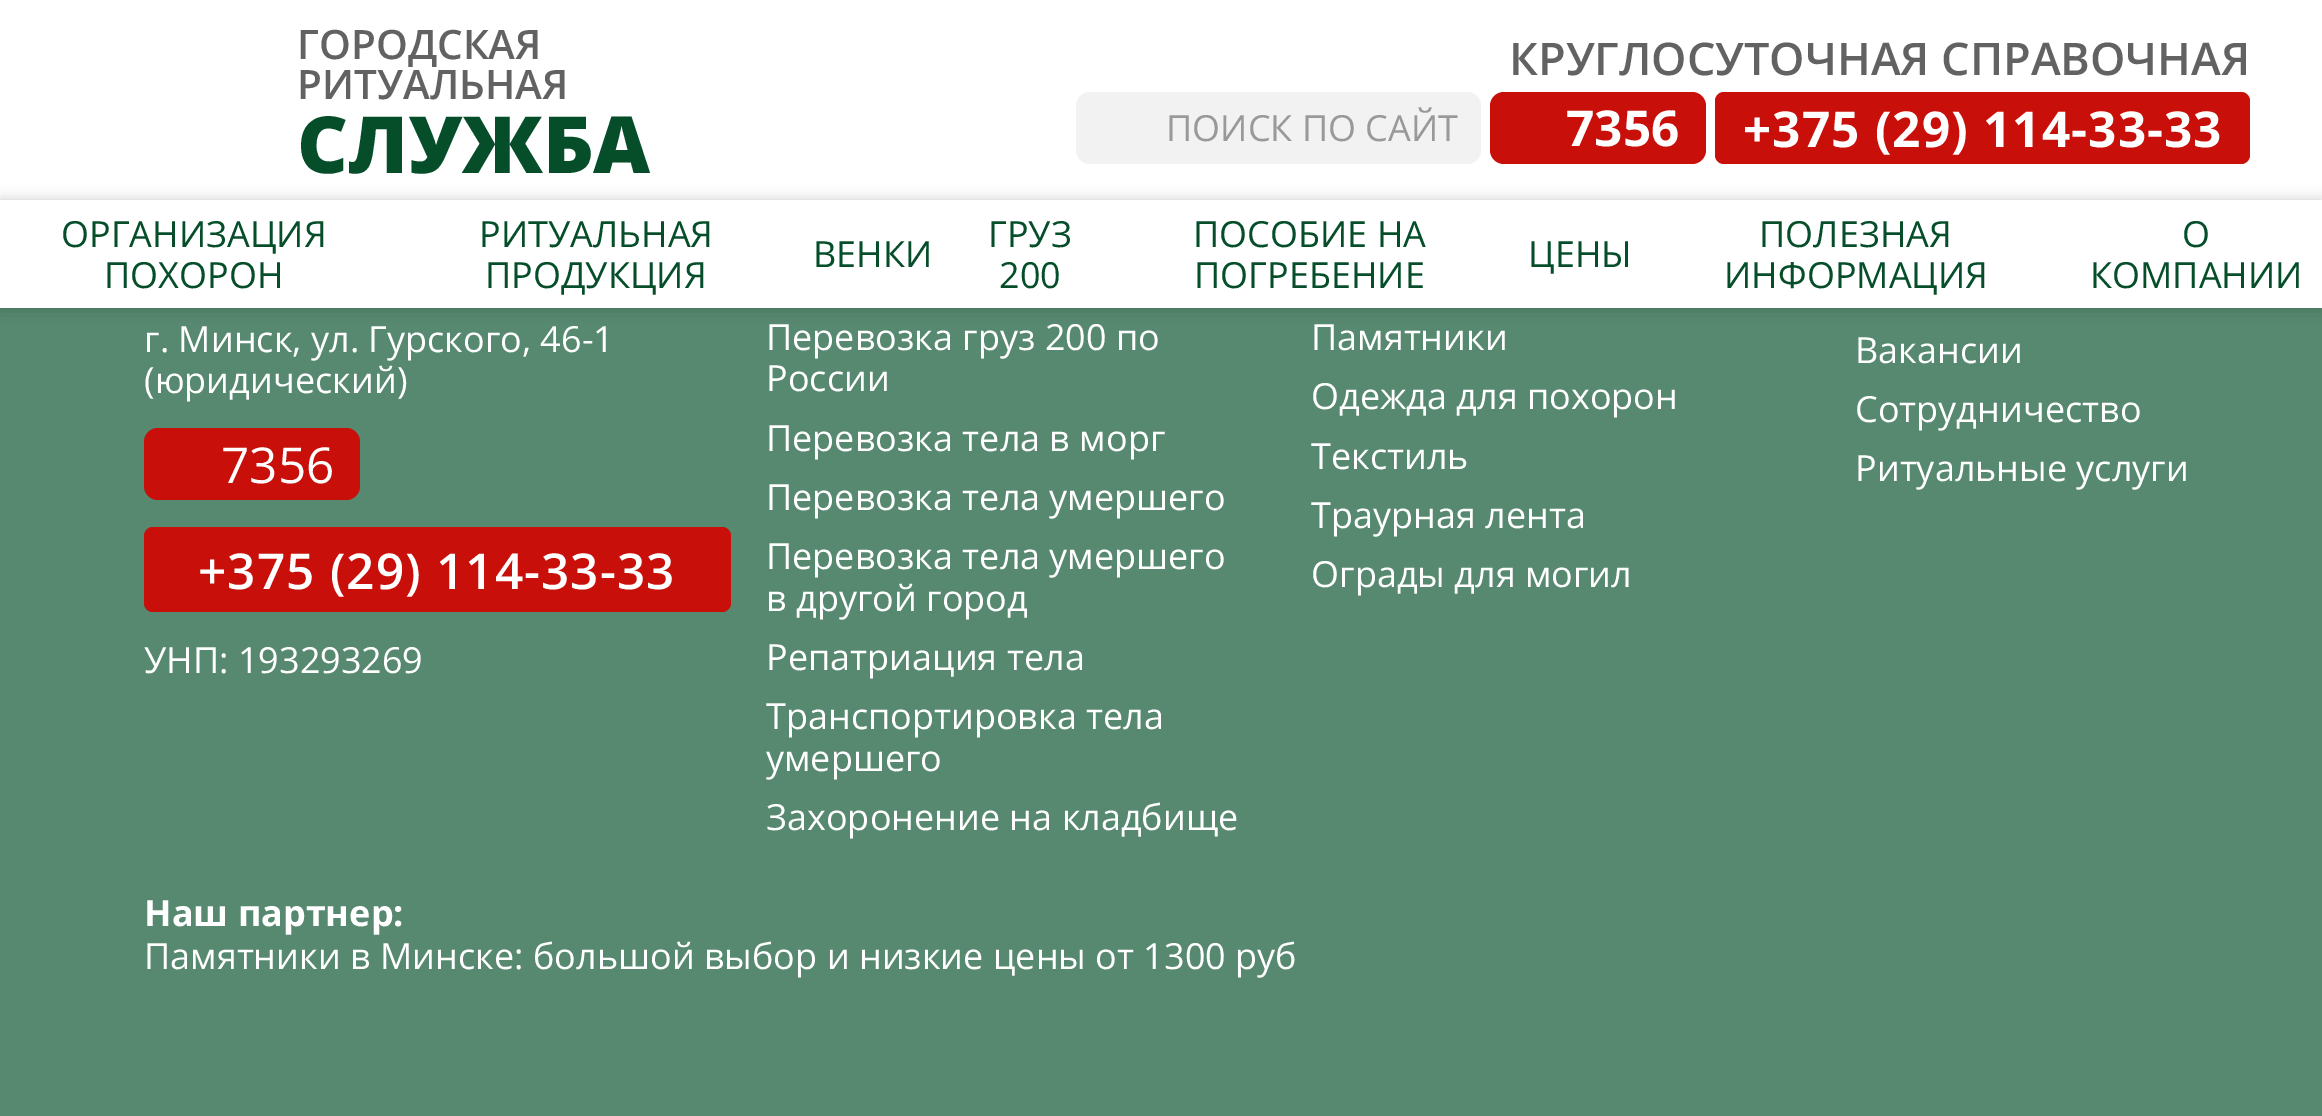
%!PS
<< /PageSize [2322 1116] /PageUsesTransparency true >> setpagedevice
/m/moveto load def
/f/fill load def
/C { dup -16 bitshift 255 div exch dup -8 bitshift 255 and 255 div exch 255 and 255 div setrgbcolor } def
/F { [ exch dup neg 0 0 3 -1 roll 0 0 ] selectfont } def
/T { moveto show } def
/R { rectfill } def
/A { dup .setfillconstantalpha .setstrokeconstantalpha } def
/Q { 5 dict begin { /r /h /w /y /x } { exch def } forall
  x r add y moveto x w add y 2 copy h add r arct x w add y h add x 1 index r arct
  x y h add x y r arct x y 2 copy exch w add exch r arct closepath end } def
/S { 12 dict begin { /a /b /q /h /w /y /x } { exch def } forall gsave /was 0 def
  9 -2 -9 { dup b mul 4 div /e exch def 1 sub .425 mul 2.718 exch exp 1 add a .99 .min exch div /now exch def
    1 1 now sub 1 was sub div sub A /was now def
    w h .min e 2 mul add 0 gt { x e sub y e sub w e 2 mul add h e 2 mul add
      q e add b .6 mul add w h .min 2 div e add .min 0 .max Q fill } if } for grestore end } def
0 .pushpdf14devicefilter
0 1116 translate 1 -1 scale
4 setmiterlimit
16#578870 C
0 0 2322 1116 R
16#FFFFFF C
0 0 2322 200 R
/OpenSans-SemiBold 40.5 F
16#626262 C
(ГОРОДСКАЯ) 297 59 T
(РИТУАЛЬНАЯ) 297 99 T
/OpenSans-ExtraBold 78.75 F
16#064E2A C
(СЛУЖБА) 297 173 T
/OpenSans-SemiBold 45 F
16#626262 C
(КРУГЛОСУТОЧНАЯ СПРАВОЧНАЯ) 1509 75 T
16#F2F2F2 C
1076 92 405 72 14 Q f
/OpenSans-Regular 36 F
16#999999 C
(ПОИСК ПО САЙТ) 1166 141 T
16#C80F0A C
1490 92 216 72 14 Q f
/OpenSans-Bold 49.5 F
16#FFFFFF C
(7356) 1566 146 T
16#C80F0A C
1715 92 535 72 9 Q f
16#FFFFFF C
1743 147 m 1.1 0 (+375 \(29\) 114-33-33) ashow
16#000000 C
0 200 2322 108 0 7 .2 S
16#FFFFFF C
0 200 2322 108 R
/OpenSans-Regular 36 F
16#064E2A C
(ОРГАНИЗАЦИЯ) 61 247 T
(ПОХОРОН) 104 288 T
(РИТУАЛЬНАЯ) 479 247 T
(ПРОДУКЦИЯ) 485 288 T
(ВЕНКИ) 813 267 T
(ГРУЗ) 988 247 T
(200) 999 288 T
(ПОСОБИЕ НА) 1193 247 T
(ПОГРЕБЕНИЕ) 1194 288 T
(ЦЕНЫ) 1528 267 T
(ПОЛЕЗНАЯ) 1759 247 T
(ИНФОРМАЦИЯ) 1724 288 T
(О) 2182 247 T
(КОМПАНИИ) 2090 288 T
16#FFFFFF C
(г. Минск, ул. Гурского, 46-1) 144 352 T
(\(юридический\)) 144 393 T
16#C80F0A C
144 428 216 72 14 Q f
/OpenSans-Regular 49.5 F
16#FFFFFF C
(7356) 221 483 T
16#C80F0A C
144 527 587 85 9 Q f
/OpenSans-SemiBold 49.5 F
16#FFFFFF C
198 589 m 1.1 0 (+375 \(29\) 114-33-33) ashow
/OpenSans-Regular 36 F
(УНП: 193293269) 144 673 T
(Перевозка груз 200 по) 766 350 T
(России) 766 391 T
(Перевозка тела в морг) 766 451 T
(Перевозка тела умершего) 766 510 T
(Перевозка тела умершего) 766 569 T
(в другой город) 766 611 T
(Репатриация тела) 766 670 T
(Транспортировка тела) 766 729 T
(умершего) 766 771 T
(Захоронение на кладбище) 766 830 T
(Памятники) 1311 350 T
(Одежда для похорон) 1311 409 T
(Текстиль) 1311 469 T
(Траурная лента) 1311 528 T
(Ограды для могил) 1311 587 T
(Вакансии) 1855 363 T
(Сотрудничество) 1855 422 T
(Ритуальные услуги) 1855 481 T
/OpenSans-Bold 36 F
(Наш партнер:) 144 926 T
/OpenSans-Regular 36 F
(Памятники в Минске: большой выбор и низкие цены от 1300 руб) 144 969 T
.poppdf14devicefilter showpage
